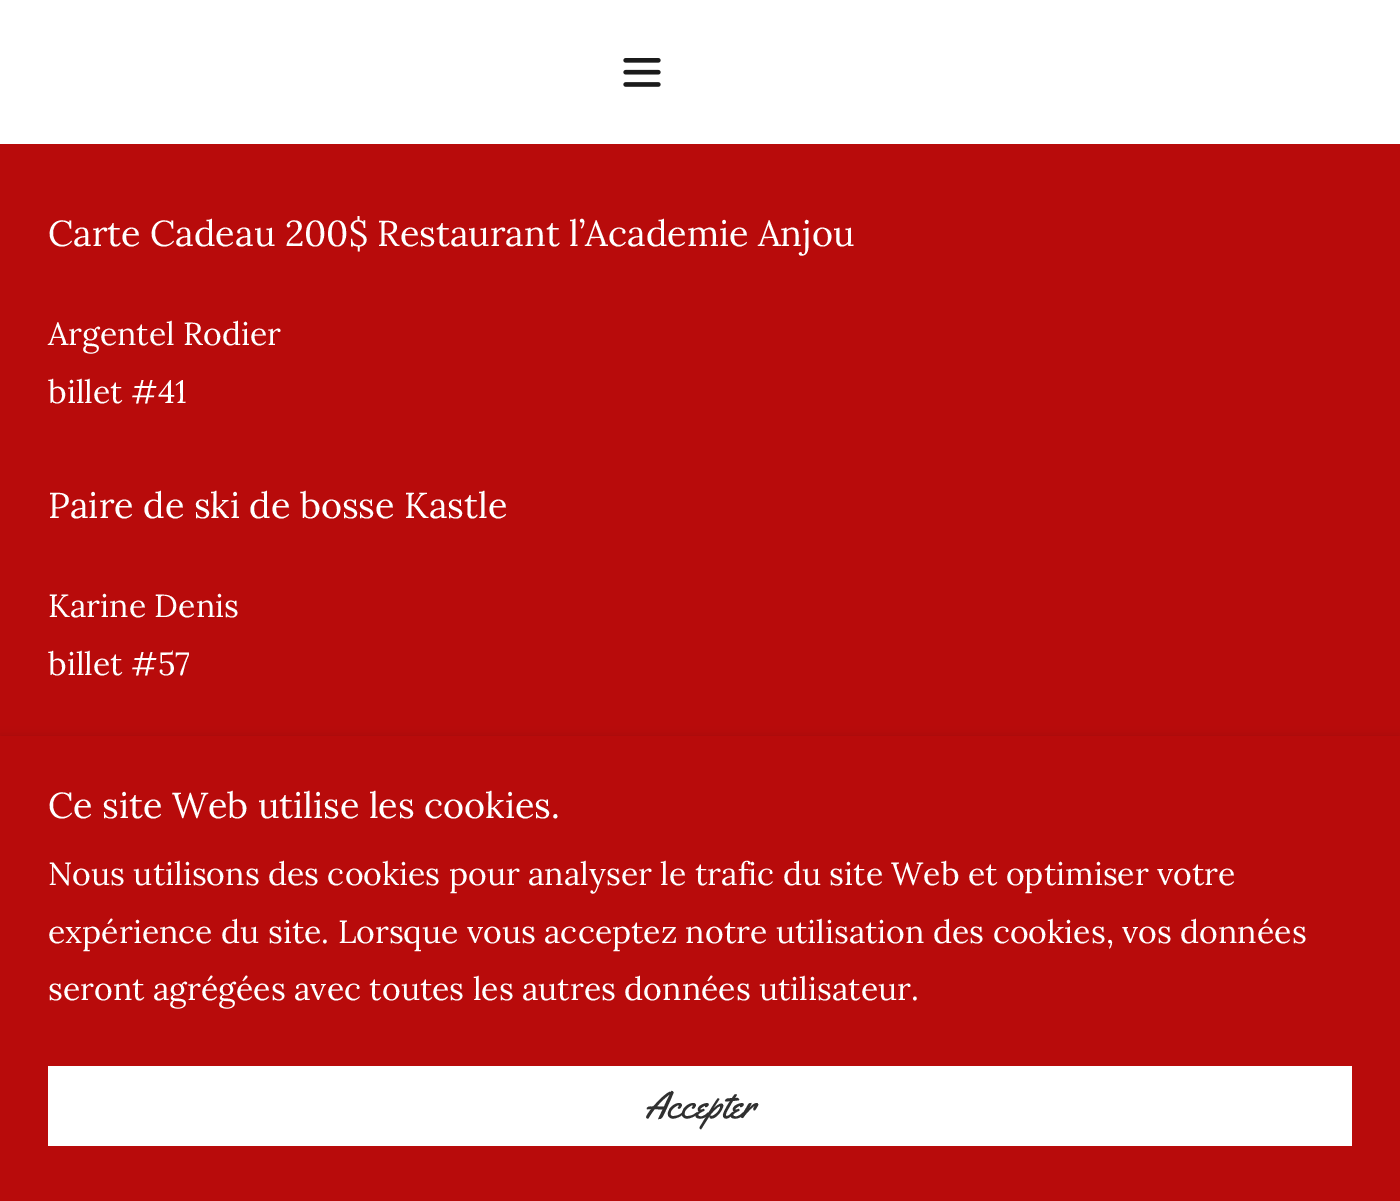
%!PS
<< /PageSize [1400 1201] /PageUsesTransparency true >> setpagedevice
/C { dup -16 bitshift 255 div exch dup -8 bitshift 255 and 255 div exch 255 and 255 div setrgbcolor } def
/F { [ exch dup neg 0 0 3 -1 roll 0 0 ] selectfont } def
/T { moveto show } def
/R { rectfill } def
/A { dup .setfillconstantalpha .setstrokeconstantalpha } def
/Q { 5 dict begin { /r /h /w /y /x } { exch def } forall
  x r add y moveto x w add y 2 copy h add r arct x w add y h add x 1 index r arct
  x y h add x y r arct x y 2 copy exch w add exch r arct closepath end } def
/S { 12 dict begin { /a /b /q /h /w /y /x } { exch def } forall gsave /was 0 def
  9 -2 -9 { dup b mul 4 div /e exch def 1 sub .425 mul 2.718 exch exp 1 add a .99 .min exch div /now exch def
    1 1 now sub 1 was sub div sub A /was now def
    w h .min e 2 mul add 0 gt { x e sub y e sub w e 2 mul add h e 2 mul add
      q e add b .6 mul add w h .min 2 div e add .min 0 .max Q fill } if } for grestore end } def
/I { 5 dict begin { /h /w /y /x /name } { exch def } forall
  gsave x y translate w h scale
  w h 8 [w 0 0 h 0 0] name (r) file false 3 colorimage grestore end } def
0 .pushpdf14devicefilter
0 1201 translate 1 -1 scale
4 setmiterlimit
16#B80B0B C
0 0 1400 1201 R
16#FFFFFF C
0 0 1400 144 R
(1.rgb) 623 58 38 29 I
/Lora-Regular 36 F
(Carte Cadeau 200$ Restaurant l’Academie Anjou) 48 246 T
/Lora-Regular 32 F
(Argentel Rodier) 48 345 T
(billet #41) 48 403 T
/Lora-Regular 36 F
(Paire de ski de bosse Kastle) 48 518 T
/Lora-Regular 32 F
(Karine Denis) 48 617 T
(billet #57) 48 675 T
16#000000 C
0 740 1400 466 0 6 .3 S
16#B80B0B C
0 736 1400 465 R
/Lora-Regular 36 F
16#FFFFFF C
(Ce site Web utilise les cookies.) 48 818 T
/Lora-Regular 32 F
(Nous utilisons des cookies pour analyser le trafic du site Web et optimiser votre) 48 885 T
(expérience du site. Lorsque vous acceptez notre utilisation des cookies, vos données) 48 943 T
(seront agrégées avec toutes les autres données utilisateur.) 48 1000 T
48 1066 1304 80 R
/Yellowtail-Regular 38 F
16#303030 C
(Accepter) 645 1118 T
.poppdf14devicefilter showpage
